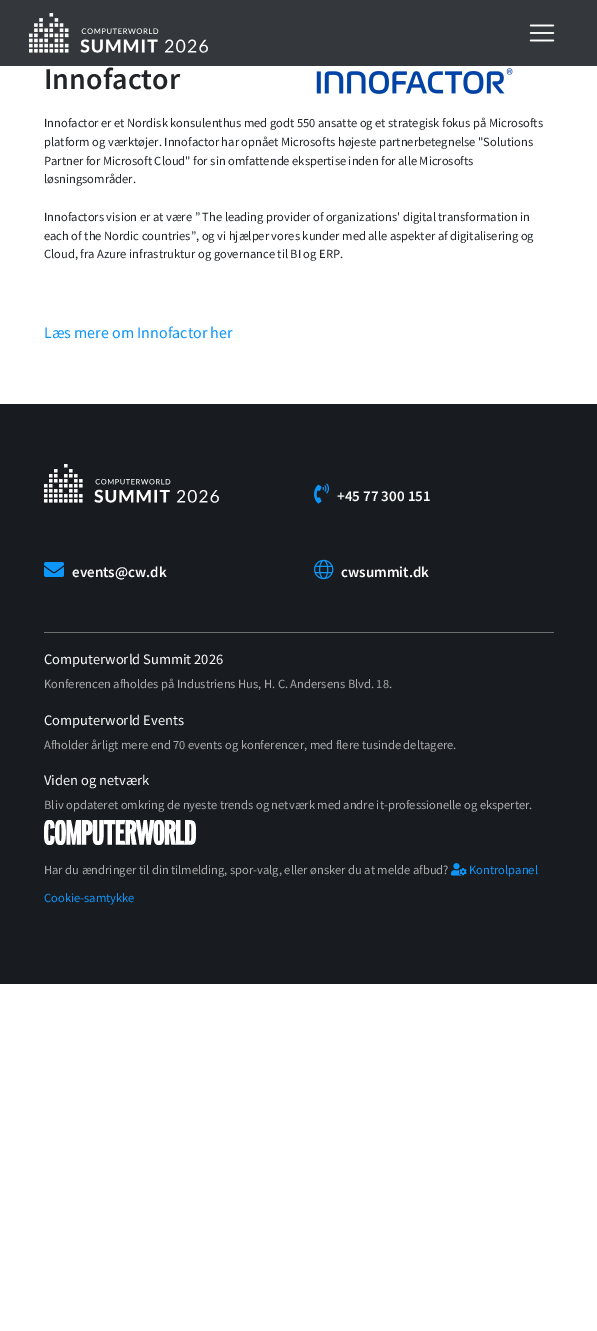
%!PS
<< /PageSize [597 1331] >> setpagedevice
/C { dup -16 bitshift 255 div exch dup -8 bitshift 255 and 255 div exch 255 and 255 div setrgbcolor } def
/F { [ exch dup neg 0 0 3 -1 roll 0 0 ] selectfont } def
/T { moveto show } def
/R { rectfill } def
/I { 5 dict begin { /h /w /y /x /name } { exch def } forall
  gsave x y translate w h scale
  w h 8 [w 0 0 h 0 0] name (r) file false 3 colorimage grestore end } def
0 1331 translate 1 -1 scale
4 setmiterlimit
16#FFFFFF C
0 0 597 1331 R
16#34373B C
0 0 597 66 R
(1.rgb) 29 13 179 40 I
(2.rgb) 529 24 26 18 I
/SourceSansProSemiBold-SemiBold 30 F
16#212529 C
(Innofactor) 44 89 T
(3.rgb) 316 68 197 26 I
/SourceSansPro-Regular 12.5 F
(Innofactor er et Nordisk konsulenthus med godt 550 ansatte og et strategisk fokus på Microsofts) 44 127 T
(platform og værktøjer. Innofactor har opnået Microsofts højeste partnerbetegnelse "Solutions) 44 146 T
(Partner for Microsoft Cloud" for sin omfattende ekspertise inden for alle Microsofts) 44 165 T
(løsningsområder.) 44 183 T
(Innofactors vision er at være ” The leading provider of organizations' digital transformation in) 44 221 T
(each of the Nordic countries”, og vi hjælper vores kunder med alle aspekter af digitalisering og) 44 240 T
(Cloud, fra Azure infrastruktur og governance til BI og ERP.) 44 258 T
/SourceSansPro-Regular 16 F
16#0D96F9 C
(Læs mere om Innofactor her) 44 338 T
16#181B20 C
0 404 597 580 R
(4.rgb) 44 464 175 39 I
(5.rgb) 314 483 15 21 I
/SourceSansProSemiBold-SemiBold 15 F
16#FFFFFF C
(+45 77 300 151) 337 501 T
(6.rgb) 44 562 20 15 I
(events@cw.dk) 72 577 T
(7.rgb) 314 559 20 21 I
(cwsummit.dk) 341 577 T
16#707070 C
44 632 510 1 R
/SourceSansPro-Regular 14.5 F
16#FFFFFF C
(Computerworld Summit 2026) 44 664 T
/SourceSansPro-Regular 12.5 F
16#ABABAB C
(Konferencen afholdes på Industriens Hus, H. C. Andersens Blvd. 18.) 44 688 T
/SourceSansPro-Regular 14.5 F
16#FFFFFF C
(Computerworld Events) 44 725 T
/SourceSansPro-Regular 12.5 F
16#ABABAB C
(Afholder årligt mere end 70 events og konferencer, med flere tusinde deltagere.) 44 749 T
/SourceSansPro-Regular 14.5 F
16#FFFFFF C
(Viden og netværk) 44 785 T
/SourceSansPro-Regular 12.5 F
16#ABABAB C
(Bliv opdateret omkring de nyeste trends og netværk med andre it-professionelle og eksperter.) 44 809 T
(8.rgb) 44 820 152 25 I
(Har du ændringer til din tilmelding, spor-valg, eller ønsker du at melde afbud?) 44 874 T
(9.rgb) 451 863 16 13 I
16#0D96F9 C
(Kontrolpanel) 469 874 T
(Cookie-samtykke) 44 902 T
showpage
